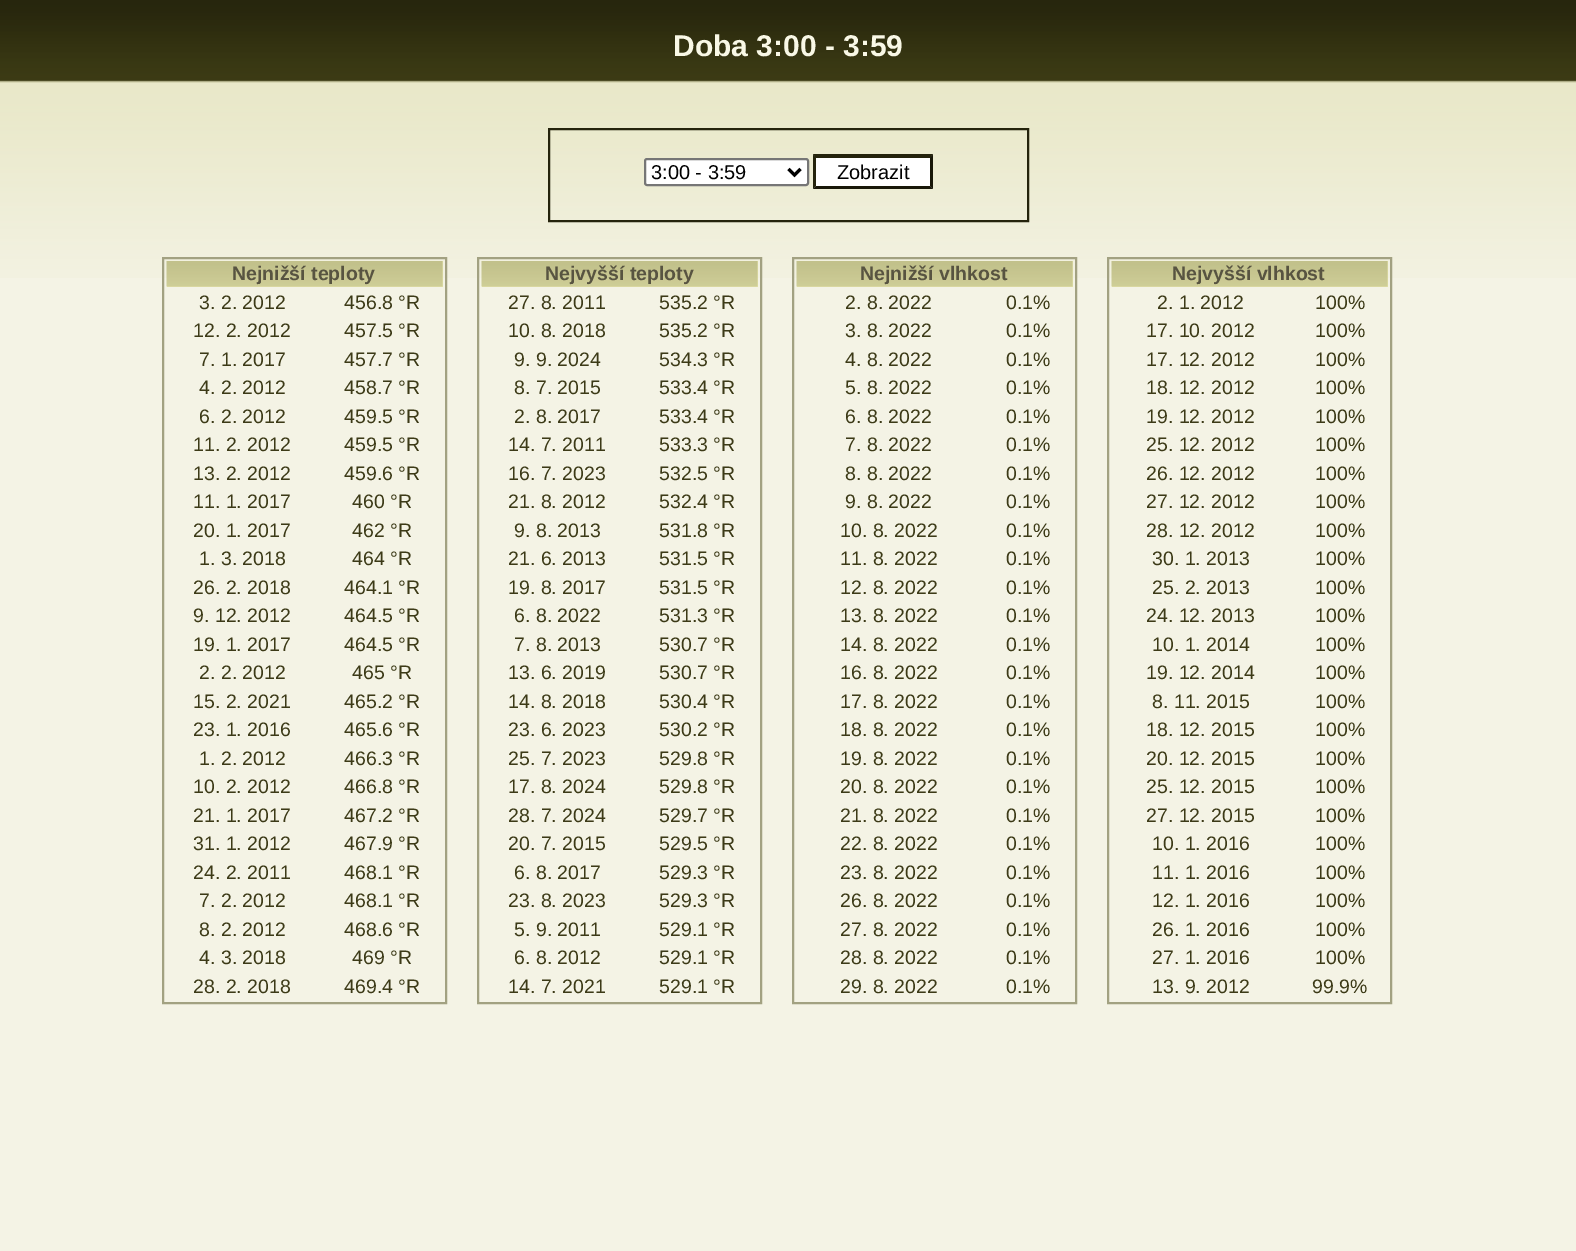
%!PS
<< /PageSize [1576 1251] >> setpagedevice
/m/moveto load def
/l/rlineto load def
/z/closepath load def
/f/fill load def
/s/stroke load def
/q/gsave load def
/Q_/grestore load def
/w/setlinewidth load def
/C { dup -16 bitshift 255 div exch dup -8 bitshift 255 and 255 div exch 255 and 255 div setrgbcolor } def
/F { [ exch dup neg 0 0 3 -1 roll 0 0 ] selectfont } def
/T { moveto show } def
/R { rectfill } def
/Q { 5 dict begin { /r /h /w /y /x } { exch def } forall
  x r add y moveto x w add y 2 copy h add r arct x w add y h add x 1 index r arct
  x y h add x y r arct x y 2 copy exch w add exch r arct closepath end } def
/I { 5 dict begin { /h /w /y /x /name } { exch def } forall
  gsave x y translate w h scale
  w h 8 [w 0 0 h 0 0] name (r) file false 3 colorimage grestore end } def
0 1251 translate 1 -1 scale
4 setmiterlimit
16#F4F3E5 C
0 0 1576 1251 R
(1.rgb) 0 0 1576 278 I
/LiberationSans-Bold 30 F
16#F9F8E6 C
(Doba 3:00 - 3:59) 673 56 T
16#24230C C
2 w
549 129 479 92 rectstroke
16#FFFFFF C
645 159 163 26 2 Q q f Q_
16#767676 C
s
16#000000 C
3 w
788.5 169 m 6 6 l 6 -6 l s
/LiberationSans-Regular 20 F
(3:00 - 3:59) 651 179 T
16#FFFFFF C
813 155 120 34 R
16#24230C C
813 154 m 120 0 l -3 4 l -114 0 l z f
16#181708 C
933 154.5 m 0 34.5 l -3 -3 l 0 -28.5 l z f
933 189 m -120 0 l 3 -3 l 114 0 l z f
16#24230C C
813 189 m 0 -34.5 l 3 3 l 0 28.5 l z f
16#000000 C
(Zobrazit) 837 179 T
16#A2A181 C
2 w
163 258 283 745 rectstroke
16#E3E2A9 C
167 261 276 26 R
(2.rgb) 166 261 277 26 I
/LiberationSans-Bold 19.5 F
16#585441 C
(Nejnižší teploty) 232 280 T
/LiberationSans-Regular 19.5 F
16#3C3A17 C
(3. 2. 2012) 199 309 T
(456.8 °R) 344 309 T
(12. 2. 2012) 193 337 T
(457.5 °R) 344 337 T
(7. 1. 2017) 199 366 T
(457.7 °R) 344 366 T
(4. 2. 2012) 199 394 T
(458.7 °R) 344 394 T
(6. 2. 2012) 199 423 T
(459.5 °R) 344 423 T
(11. 2. 2012) 193 451 T
(459.5 °R) 344 451 T
(13. 2. 2012) 193 480 T
(459.6 °R) 344 480 T
(11. 1. 2017) 193 508 T
(460 °R) 352 508 T
(20. 1. 2017) 193 537 T
(462 °R) 352 537 T
(1. 3. 2018) 199 565 T
(464 °R) 352 565 T
(26. 2. 2018) 193 594 T
(464.1 °R) 344 594 T
(9. 12. 2012) 193 622 T
(464.5 °R) 344 622 T
(19. 1. 2017) 193 651 T
(464.5 °R) 344 651 T
(2. 2. 2012) 199 679 T
(465 °R) 352 679 T
(15. 2. 2021) 193 708 T
(465.2 °R) 344 708 T
(23. 1. 2016) 193 736 T
(465.6 °R) 344 736 T
(1. 2. 2012) 199 765 T
(466.3 °R) 344 765 T
(10. 2. 2012) 193 793 T
(466.8 °R) 344 793 T
(21. 1. 2017) 193 822 T
(467.2 °R) 344 822 T
(31. 1. 2012) 193 850 T
(467.9 °R) 344 850 T
(24. 2. 2011) 193 879 T
(468.1 °R) 344 879 T
(7. 2. 2012) 199 907 T
(468.1 °R) 344 907 T
(8. 2. 2012) 199 936 T
(468.6 °R) 344 936 T
(4. 3. 2018) 199 964 T
(469 °R) 352 964 T
(28. 2. 2018) 193 993 T
(469.4 °R) 344 993 T
16#A2A181 C
478 258 283 745 rectstroke
16#E3E2A9 C
482 261 276 26 R
(2.rgb) 481 261 277 26 I
/LiberationSans-Bold 19.5 F
16#585441 C
(Nejvyšší teploty) 545 280 T
/LiberationSans-Regular 19.5 F
16#3C3A17 C
(27. 8. 2011) 508 309 T
(535.2 °R) 659 309 T
(10. 8. 2018) 508 337 T
(535.2 °R) 659 337 T
(9. 9. 2024) 514 366 T
(534.3 °R) 659 366 T
(8. 7. 2015) 514 394 T
(533.4 °R) 659 394 T
(2. 8. 2017) 514 423 T
(533.4 °R) 659 423 T
(14. 7. 2011) 508 451 T
(533.3 °R) 659 451 T
(16. 7. 2023) 508 480 T
(532.5 °R) 659 480 T
(21. 8. 2012) 508 508 T
(532.4 °R) 659 508 T
(9. 8. 2013) 514 537 T
(531.8 °R) 659 537 T
(21. 6. 2013) 508 565 T
(531.5 °R) 659 565 T
(19. 8. 2017) 508 594 T
(531.5 °R) 659 594 T
(6. 8. 2022) 514 622 T
(531.3 °R) 659 622 T
(7. 8. 2013) 514 651 T
(530.7 °R) 659 651 T
(13. 6. 2019) 508 679 T
(530.7 °R) 659 679 T
(14. 8. 2018) 508 708 T
(530.4 °R) 659 708 T
(23. 6. 2023) 508 736 T
(530.2 °R) 659 736 T
(25. 7. 2023) 508 765 T
(529.8 °R) 659 765 T
(17. 8. 2024) 508 793 T
(529.8 °R) 659 793 T
(28. 7. 2024) 508 822 T
(529.7 °R) 659 822 T
(20. 7. 2015) 508 850 T
(529.5 °R) 659 850 T
(6. 8. 2017) 514 879 T
(529.3 °R) 659 879 T
(23. 8. 2023) 508 907 T
(529.3 °R) 659 907 T
(5. 9. 2011) 514 936 T
(529.1 °R) 659 936 T
(6. 8. 2012) 514 964 T
(529.1 °R) 659 964 T
(14. 7. 2021) 508 993 T
(529.1 °R) 659 993 T
16#A2A181 C
793 258 283 745 rectstroke
16#E3E2A9 C
797 261 276 26 R
(2.rgb) 796 261 277 26 I
/LiberationSans-Bold 19.5 F
16#585441 C
(Nejnižší vlhkost) 860 280 T
/LiberationSans-Regular 19.5 F
16#3C3A17 C
(2. 8. 2022) 845 309 T
(0.1%) 1006 309 T
(3. 8. 2022) 845 337 T
(0.1%) 1006 337 T
(4. 8. 2022) 845 366 T
(0.1%) 1006 366 T
(5. 8. 2022) 845 394 T
(0.1%) 1006 394 T
(6. 8. 2022) 845 423 T
(0.1%) 1006 423 T
(7. 8. 2022) 845 451 T
(0.1%) 1006 451 T
(8. 8. 2022) 845 480 T
(0.1%) 1006 480 T
(9. 8. 2022) 845 508 T
(0.1%) 1006 508 T
(10. 8. 2022) 840 537 T
(0.1%) 1006 537 T
(11. 8. 2022) 840 565 T
(0.1%) 1006 565 T
(12. 8. 2022) 840 594 T
(0.1%) 1006 594 T
(13. 8. 2022) 840 622 T
(0.1%) 1006 622 T
(14. 8. 2022) 840 651 T
(0.1%) 1006 651 T
(16. 8. 2022) 840 679 T
(0.1%) 1006 679 T
(17. 8. 2022) 840 708 T
(0.1%) 1006 708 T
(18. 8. 2022) 840 736 T
(0.1%) 1006 736 T
(19. 8. 2022) 840 765 T
(0.1%) 1006 765 T
(20. 8. 2022) 840 793 T
(0.1%) 1006 793 T
(21. 8. 2022) 840 822 T
(0.1%) 1006 822 T
(22. 8. 2022) 840 850 T
(0.1%) 1006 850 T
(23. 8. 2022) 840 879 T
(0.1%) 1006 879 T
(26. 8. 2022) 840 907 T
(0.1%) 1006 907 T
(27. 8. 2022) 840 936 T
(0.1%) 1006 936 T
(28. 8. 2022) 840 964 T
(0.1%) 1006 964 T
(29. 8. 2022) 840 993 T
(0.1%) 1006 993 T
16#A2A181 C
1108 258 283 745 rectstroke
16#E3E2A9 C
1112 261 276 26 R
(2.rgb) 1111 261 277 26 I
/LiberationSans-Bold 19.5 F
16#585441 C
(Nejvyšší vlhkost) 1172 280 T
/LiberationSans-Regular 19.5 F
16#3C3A17 C
(2. 1. 2012) 1157 309 T
(100%) 1315 309 T
(17. 10. 2012) 1146 337 T
(100%) 1315 337 T
(17. 12. 2012) 1146 366 T
(100%) 1315 366 T
(18. 12. 2012) 1146 394 T
(100%) 1315 394 T
(19. 12. 2012) 1146 423 T
(100%) 1315 423 T
(25. 12. 2012) 1146 451 T
(100%) 1315 451 T
(26. 12. 2012) 1146 480 T
(100%) 1315 480 T
(27. 12. 2012) 1146 508 T
(100%) 1315 508 T
(28. 12. 2012) 1146 537 T
(100%) 1315 537 T
(30. 1. 2013) 1152 565 T
(100%) 1315 565 T
(25. 2. 2013) 1152 594 T
(100%) 1315 594 T
(24. 12. 2013) 1146 622 T
(100%) 1315 622 T
(10. 1. 2014) 1152 651 T
(100%) 1315 651 T
(19. 12. 2014) 1146 679 T
(100%) 1315 679 T
(8. 11. 2015) 1152 708 T
(100%) 1315 708 T
(18. 12. 2015) 1146 736 T
(100%) 1315 736 T
(20. 12. 2015) 1146 765 T
(100%) 1315 765 T
(25. 12. 2015) 1146 793 T
(100%) 1315 793 T
(27. 12. 2015) 1146 822 T
(100%) 1315 822 T
(10. 1. 2016) 1152 850 T
(100%) 1315 850 T
(11. 1. 2016) 1152 879 T
(100%) 1315 879 T
(12. 1. 2016) 1152 907 T
(100%) 1315 907 T
(26. 1. 2016) 1152 936 T
(100%) 1315 936 T
(27. 1. 2016) 1152 964 T
(100%) 1315 964 T
(13. 9. 2012) 1152 993 T
(99.9%) 1312 993 T
showpage
